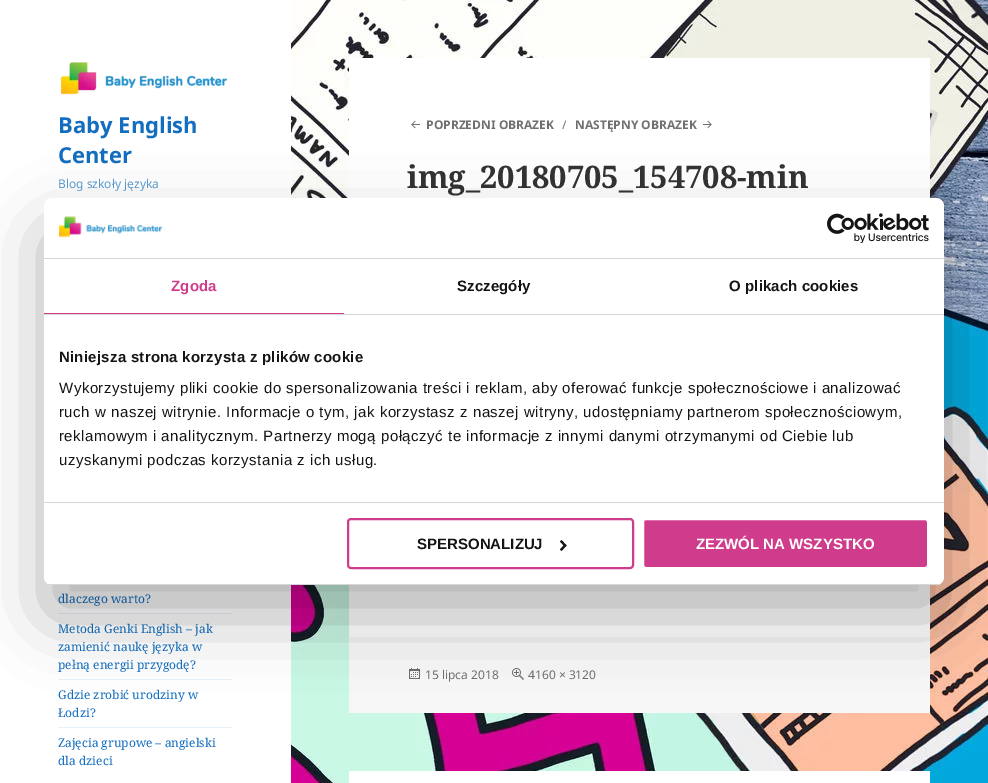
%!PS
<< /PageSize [988 783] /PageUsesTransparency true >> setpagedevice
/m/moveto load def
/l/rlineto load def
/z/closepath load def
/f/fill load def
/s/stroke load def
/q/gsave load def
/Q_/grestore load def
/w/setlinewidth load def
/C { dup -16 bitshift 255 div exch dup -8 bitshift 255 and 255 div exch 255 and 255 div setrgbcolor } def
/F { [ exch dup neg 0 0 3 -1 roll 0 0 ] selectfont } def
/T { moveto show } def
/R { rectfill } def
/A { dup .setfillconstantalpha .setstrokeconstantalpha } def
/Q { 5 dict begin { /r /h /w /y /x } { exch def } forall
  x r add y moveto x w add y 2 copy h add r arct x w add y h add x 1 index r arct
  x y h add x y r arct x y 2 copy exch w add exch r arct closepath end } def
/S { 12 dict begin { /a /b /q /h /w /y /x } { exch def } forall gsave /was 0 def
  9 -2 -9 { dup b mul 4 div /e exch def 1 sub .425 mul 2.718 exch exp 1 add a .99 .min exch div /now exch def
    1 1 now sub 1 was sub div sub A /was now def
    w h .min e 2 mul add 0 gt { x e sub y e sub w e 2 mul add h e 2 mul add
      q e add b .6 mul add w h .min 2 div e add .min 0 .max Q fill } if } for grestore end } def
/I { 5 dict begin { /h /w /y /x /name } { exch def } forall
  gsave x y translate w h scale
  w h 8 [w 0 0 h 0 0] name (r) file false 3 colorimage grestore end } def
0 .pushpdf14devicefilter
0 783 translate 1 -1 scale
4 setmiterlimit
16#FFFFFF C
0 0 988 783 R
(1.rgb) 291 0 697 783 I
(2.rgb) 60 62 168 33 I
/NotoSans-Bold 22 F
16#136EBF C
(Baby English) 58 133 T
(Center) 58 163 T
/NotoSans-Regular 12 F
16#5A9AD2 C
(Blog szkoły języka) 58 188 T
/NotoSerif-Regular 12 F
16#136EBF C
(dlaczego warto?) 58 603 T
16#E7F1F9 C
58 613 174 1 R
16#136EBF C
(Metoda Genki English – jak) 58 633 T
(zamienić naukę języka w) 58 651 T
(pełną energii przygodę?) 58 669 T
16#E7F1F9 C
58 679 174 1 R
16#136EBF C
(Gdzie zrobić urodziny w) 58 699 T
(Łodzi?) 58 717 T
16#E7F1F9 C
58 727 174 1 R
16#136EBF C
(Zajęcia grupowe – angielski) 58 747 T
(dla dzieci) 58 765 T
16#FFFFFF C
349 58 581 579 R
(3.rgb) 411 120 9 9 I
/NotoSans-Bold 12 F
16#707070 C
(POPRZEDNI OBRAZEK) 426 129 T
/NotoSans-Regular 12 F
(∕) 562 129 T
/NotoSans-Bold 12 F
(NASTĘPNY OBRAZEK) 575 129 T
(4.rgb) 703 120 9 9 I
/NotoSerif-Bold 31 F
16#333333 C
(img_20180705_154708-min) 407 188 T
16#F7F7F7 C
349 637 581 76 R
(5.rgb) 409 668 11 11 I
/NotoSans-Regular 12 F
16#707070 C
(15 lipca 2018) 425 679 T
(6.rgb) 512 668 12 12 I
(4160 × 3120) 528 679 T
16#FFFFFF C
349 771 581 12 R
16#000000 C
44 230 900 387 8 34 .3 S
16#FFFFFF C
44 198 900 387 8 Q f
16#D6D6D6 C
44 258 900 1 R
(7.rgb) 59 216 103 22 I
(8.rgb) 827 213 102 30 I
44 314 900 1 R
16#D03C8C C
44 313 300 1 R
/LiberationSans-Bold 15 F
171 291 m .1 0 (Zgoda) ashow
16#141414 C
457 291 m .1 0 (Szczegóły) ashow
729 291 m .1 0 (O plikach cookies) ashow
16#D6D6D6 C
44 502 900 1 R
16#141414 C
59 362 m .25 0 (Niniejsza strona korzysta z plików cookie) ashow
/LiberationSans-Regular 15 F
59 393 m .5 0 (Wykorzystujemy pliki cookie do spersonalizowania treści i reklam, aby oferować funkcje społecznościowe i analizować) ashow
59 417 m .5 0 (ruch w naszej witrynie. Informacje o tym, jak korzystasz z naszej witryny, udostępniamy partnerom społecznościowym,) ashow
59 441 m .5 0 (reklamowym i analitycznym. Partnerzy mogą połączyć te informacje z innymi danymi otrzymanymi od Ciebie lub) ashow
59 465 m .5 0 (uzyskanymi podczas korzystania z ich usług.) ashow
q
44 198 900 387 8 Q clip newpath
16#D6D6D6 C
44 584 900 1 R
Q_
16#D03C8C C
2 w
348 519 285 49 3 Q s
/LiberationSans-Bold 15 F
16#141414 C
(SPERSONALIZUJ) 417 549 T
561.5 540 m 5 5.5 l -1.5 1.5 l -5 -5.5 l z f
565 544 m 1.5 1.5 l -5 5.5 l -1.5 -1.5 l z f
16#D03C8C C
643 519 285 49 3 Q q f Q_
16#FFFFFF C
s
(ZEZWÓL NA WSZYSTKO) 696 549 T
.poppdf14devicefilter showpage
